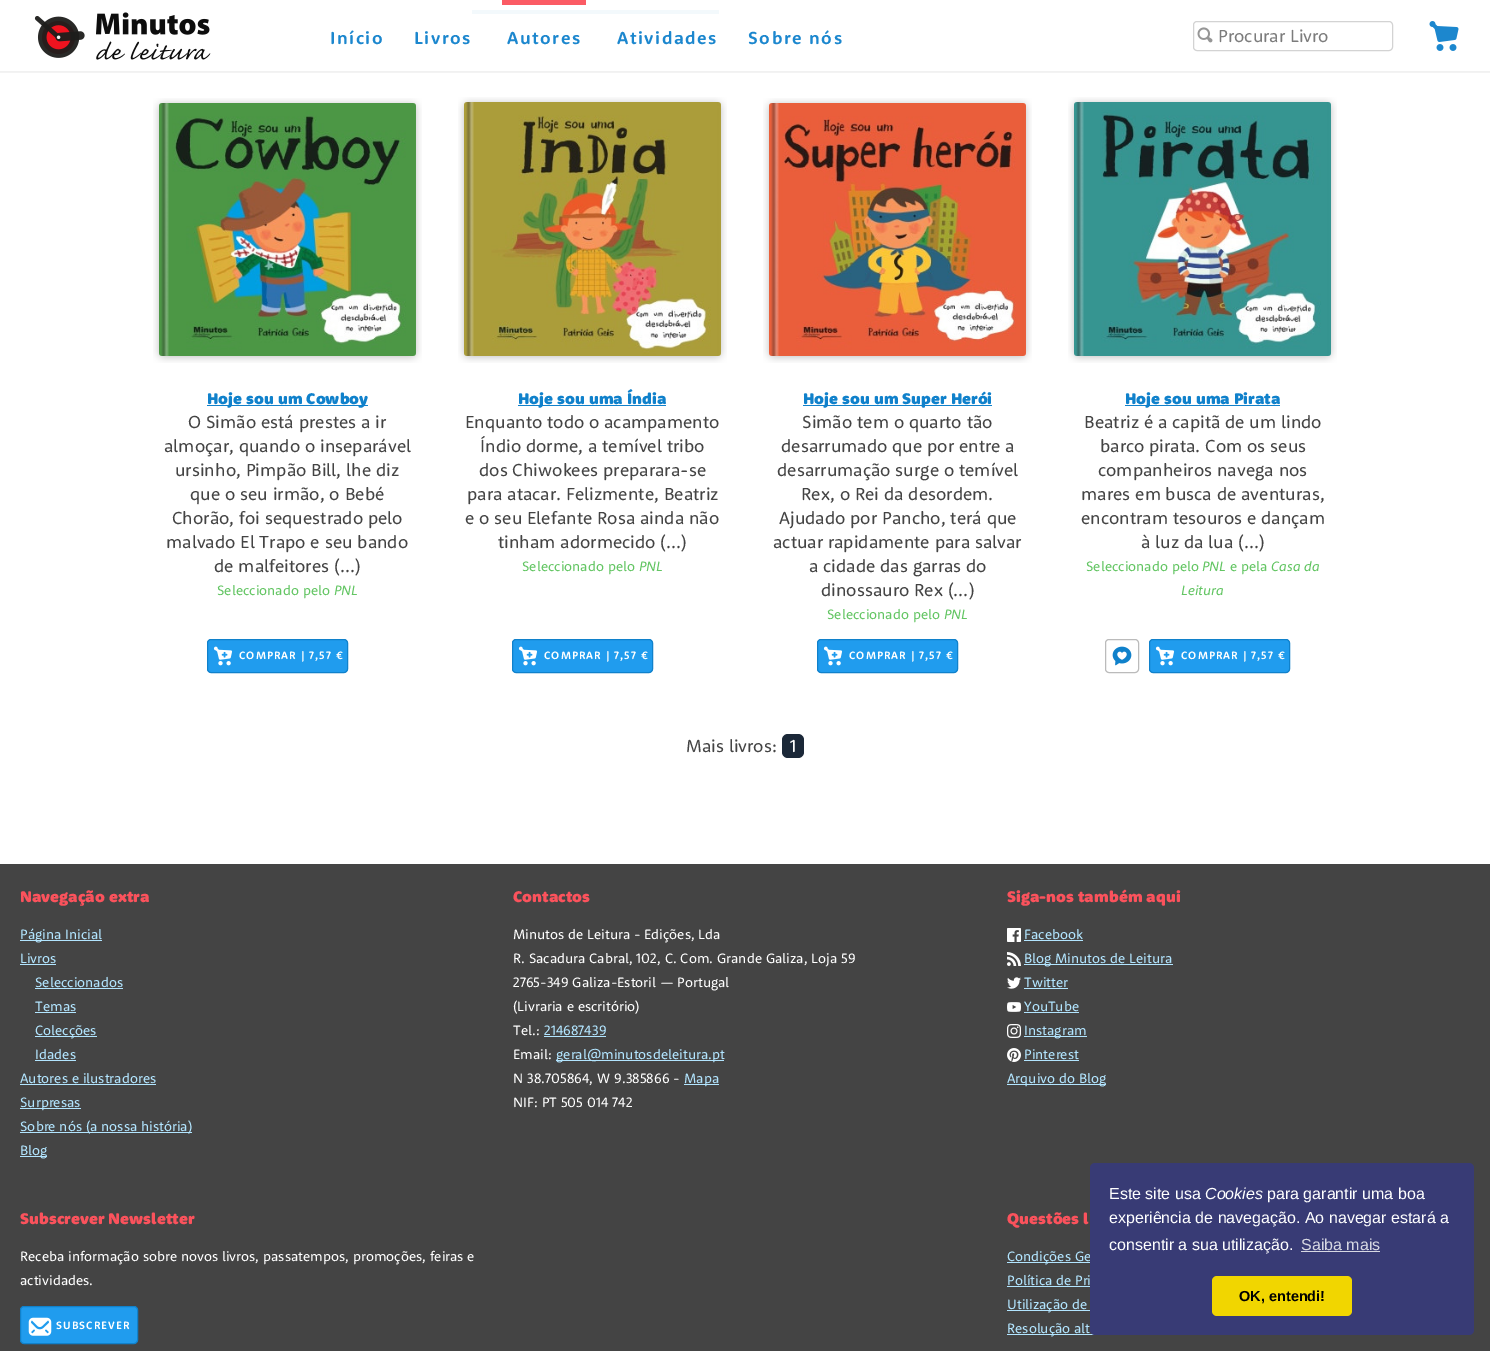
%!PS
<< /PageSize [1490 1351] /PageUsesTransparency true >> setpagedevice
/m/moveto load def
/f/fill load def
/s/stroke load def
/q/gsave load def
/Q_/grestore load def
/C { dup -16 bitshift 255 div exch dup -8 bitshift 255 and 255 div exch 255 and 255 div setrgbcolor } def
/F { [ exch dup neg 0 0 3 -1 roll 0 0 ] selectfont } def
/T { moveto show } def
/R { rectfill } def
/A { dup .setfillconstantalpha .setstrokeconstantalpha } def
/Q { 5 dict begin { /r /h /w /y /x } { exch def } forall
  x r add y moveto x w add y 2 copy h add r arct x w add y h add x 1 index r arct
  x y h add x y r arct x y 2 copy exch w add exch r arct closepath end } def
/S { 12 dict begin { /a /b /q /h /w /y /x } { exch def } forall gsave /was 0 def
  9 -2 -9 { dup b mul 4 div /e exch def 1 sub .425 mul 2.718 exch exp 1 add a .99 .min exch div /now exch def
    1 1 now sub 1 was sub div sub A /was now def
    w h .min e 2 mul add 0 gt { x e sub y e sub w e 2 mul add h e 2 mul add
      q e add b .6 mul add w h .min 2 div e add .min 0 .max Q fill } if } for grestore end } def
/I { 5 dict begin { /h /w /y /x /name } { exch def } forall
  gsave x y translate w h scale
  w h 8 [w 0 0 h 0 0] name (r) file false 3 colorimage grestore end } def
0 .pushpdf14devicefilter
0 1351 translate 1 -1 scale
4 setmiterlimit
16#FFFFFF C
0 0 1490 1351 R
16#F3F9FC C
472 10 247 4 R
q
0 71 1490 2 rectclip
16#0D0D0D C
-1 0 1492 73 0 .5 .05 S
Q_
(1.rgb) 34 16 51 42 I
(2.rgb) 96 12 115 48 I
/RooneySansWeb-Bold 18 F
16#1C87CE C
330 44 m 1.5 0 (Início) ashow
414 44 m 1.5 0 (Livros) ashow
0.95 A
16#FB525C C
502 0 84 5 R
1 A
16#1C87CE C
507 44 m 1.5 0 (Autores) ashow
617 44 m 1.5 0 (Atividades) ashow
748 44 m 1.5 0 (Sobre nós) ashow
16#D3D3D3 C
1193.5 21.5 199 29 3.5 Q s
(3.rgb) 1197 27 16 16 I
/RooneySansWeb-Regular 18 F
16#7C7C7C C
(Procurar Livro) 1218 42 T
(4.rgb) 1429 21 30 30 I
(5.rgb) 153 98 269 265 I
(6.rgb) 161 103 8 253 I
16#1081CB C
207 405 161 1 R
/RooneySansWeb-Black 16 F
(Hoje sou um Cowboy) 207 404 T
/RooneySansWeb-Regular 18 F
16#444444 C
(O Simão está prestes a ir) 188 428 T
(almoçar, quando o inseparável) 164 452 T
(ursinho, Pimpão Bill, lhe diz) 175 476 T
(que o seu irmão, o Bebé) 190 500 T
(Chorão, foi sequestrado pelo) 172 524 T
(malvado El Trapo e seu bando) 166 548 T
(de malfeitores \(...\)) 214 572 T
/RooneySansWeb-Regular 14 F
16#63C563 C
(Seleccionado pelo) 217 595 T
/RooneySansWeb-Italic 14 F
(PNL) 334 595 T
16#209CEE C
207.5 639.5 140 33 3.5 Q q f Q_
16#1081CB C
s
(7.rgb) 213 646 20 20 I
/RooneySansWeb-Bold 11 F
16#FFFFFF C
239 659 m 1 0 (COMPRAR | 7,57 €) ashow
(8.rgb) 458 97 269 266 I
(9.rgb) 466 102 8 254 I
16#1081CB C
518 405 148 1 R
/RooneySansWeb-Black 16 F
(Hoje sou uma Índia) 518 404 T
/RooneySansWeb-Regular 18 F
16#444444 C
(Enquanto todo o acampamento) 465 428 T
(Índio dorme, a temível tribo) 480 452 T
(dos Chiwokees preparara-se) 479 476 T
(para atacar. Felizmente, Beatriz) 467 500 T
(e o seu Elefante Rosa ainda não) 465 524 T
(tinham adormecido \(...\)) 498 548 T
/RooneySansWeb-Regular 14 F
16#63C563 C
(Seleccionado pelo) 522 571 T
/RooneySansWeb-Italic 14 F
(PNL) 639 571 T
16#209CEE C
512.5 639.5 140 33 3.5 Q q f Q_
16#1081CB C
s
(7.rgb) 518 646 20 20 I
/RooneySansWeb-Bold 11 F
16#FFFFFF C
544 659 m 1 0 (COMPRAR | 7,57 €) ashow
(10.rgb) 763 98 269 265 I
(11.rgb) 771 103 8 253 I
16#1081CB C
803 405 189 1 R
/RooneySansWeb-Black 16 F
(Hoje sou um Super Herói) 803 404 T
/RooneySansWeb-Regular 18 F
16#444444 C
(Simão tem o quarto tão) 802 428 T
(desarrumado que por entre a) 781 452 T
(desarrumação surge o temível) 777 476 T
(Rex, o Rei da desordem.) 801 500 T
(Ajudado por Pancho, terá que) 779 524 T
(actuar rapidamente para salvar) 773 548 T
(a cidade das garras do) 809 572 T
(dinossauro Rex \(...\)) 821 596 T
/RooneySansWeb-Regular 14 F
16#63C563 C
(Seleccionado pelo) 827 619 T
/RooneySansWeb-Italic 14 F
(PNL) 944 619 T
16#209CEE C
817.5 639.5 140 33 3.5 Q q f Q_
16#1081CB C
s
(7.rgb) 823 646 20 20 I
/RooneySansWeb-Bold 11 F
16#FFFFFF C
849 659 m 1 0 (COMPRAR | 7,57 €) ashow
(12.rgb) 1068 97 269 266 I
(13.rgb) 1076 102 8 254 I
16#1081CB C
1125 405 155 1 R
/RooneySansWeb-Black 16 F
(Hoje sou uma Pirata) 1125 404 T
/RooneySansWeb-Regular 18 F
16#444444 C
(Beatriz é a capitã de um lindo) 1084 428 T
(barco pirata. Com os seus) 1100 452 T
(companheiros navega nos) 1098 476 T
(mares em busca de aventuras,) 1081 500 T
(encontram tesouros e dançam) 1081 524 T
(à luz da lua \(...\)) 1141 548 T
/RooneySansWeb-Regular 14 F
16#63C563 C
(Seleccionado pelo) 1086 571 T
/RooneySansWeb-Italic 14 F
(PNL) 1202 571 T
/RooneySansWeb-Regular 14 F
(e pela) 1230 571 T
/RooneySansWeb-Italic 14 F
(Casa da) 1271 571 T
(Leitura) 1181 595 T
16#BBBBBB C
1105.5 639.5 33 33 3.5 Q s
(14.rgb) 1112 646 20 20 I
16#209CEE C
1149.5 639.5 140 33 3.5 Q q f Q_
16#1081CB C
s
(7.rgb) 1155 646 20 20 I
/RooneySansWeb-Bold 11 F
16#FFFFFF C
1181 659 m 1 0 (COMPRAR | 7,57 €) ashow
/RooneySansWeb-Regular 18 F
16#444444 C
(Mais livros:) 686 752 T
16#1B2838 C
782 734 22 24 6 Q f
16#FFFFFF C
(1) 790 752 T
16#444444 C
0 864 1490 487 R
/RooneySansWeb-Black 16 F
16#FB525C C
(Navegação extra) 20 902 T
16#B2E5FF C
20 940 82 1 R
/RooneySansWeb-Regular 14 F
(Página Inicial) 20 939 T
(Livros) 20 963 T
20 964 36 1 R
(Seleccionados) 35 987 T
35 988 88 1 R
(Temas) 35 1011 T
35 1012 41 1 R
35 1036 62 1 R
(Colecções) 35 1035 T
(Idades) 35 1059 T
35 1060 41 1 R
(Autores e ilustradores) 20 1083 T
20 1084 136 1 R
20 1108 61 1 R
(Surpresas) 20 1107 T
20 1132 172 1 R
(Sobre nós \(a nossa história\)) 20 1131 T
20 1156 27 1 R
(Blog) 20 1155 T
/RooneySansWeb-Black 16 F
16#FB525C C
(Contactos) 513 902 T
/RooneySansWeb-Regular 14 F
16#FFFFFF C
(Minutos de Leitura - Edições, Lda) 513 939 T
(R. Sacadura Cabral, 102, C. Com. Grande Galiza, Loja 59) 513 963 T
(2765-349 Galiza-Estoril — Portugal) 513 987 T
(\(Livraria e escritório\)) 513 1011 T
(Tel.:) 513 1035 T
16#B2E5FF C
(214687439) 544 1035 T
544 1036 62 1 R
16#FFFFFF C
(Email:) 513 1059 T
16#B2E5FF C
556 1060 168 1 R
(geral@minutosdeleitura.pt) 556 1059 T
16#FFFFFF C
(N 38.705864, W 9.385866 -) 513 1083 T
16#B2E5FF C
684 1084 35 1 R
(Mapa) 684 1083 T
16#FFFFFF C
(NIF: PT 505 014 742) 513 1107 T
/RooneySansWeb-Black 16 F
16#FB525C C
(Siga-nos também aqui) 1007 902 T
(15.rgb) 1007 928 14 14 I
/RooneySansWeb-Regular 14 F
16#B2E5FF C
(Facebook) 1024 939 T
1024 940 59 1 R
(16.rgb) 1007 952 14 14 I
1024 964 149 1 R
(Blog Minutos de Leitura) 1024 963 T
(17.rgb) 1007 977 14 12 I
(Twitter) 1024 987 T
1024 988 44 1 R
(18.rgb) 1007 1002 14 10 I
(YouTube) 1024 1011 T
1024 1012 55 1 R
(19.rgb) 1007 1024 14 14 I
1024 1036 63 1 R
(Instagram) 1024 1035 T
(20.rgb) 1007 1048 14 14 I
(Pinterest) 1024 1059 T
1024 1060 55 1 R
1007 1084 99 1 R
(Arquivo do Blog) 1007 1083 T
/RooneySansWeb-Black 16 F
16#FB525C C
(Subscrever Newsletter) 20 1224 T
/RooneySansWeb-Regular 14 F
16#FFFFFF C
(Receba informação sobre novos livros, passatempos, promoções, feiras e) 20 1261 T
(actividades.) 20 1285 T
16#209CEE C
20.5 1306.5 117 37 3.5 Q q f Q_
16#1081CB C
s
(21.rgb) 28 1317 24 19 I
/RooneySansWeb-Bold 11 F
16#FFFFFF C
56 1329 m 1 0 (SUBSCREVER) ashow
/RooneySansWeb-Black 16 F
16#FB525C C
(Questões l) 1007 1224 T
16#B2E5FF C
1007 1262 83 1 R
/RooneySansWeb-Regular 14 F
(Condições Ge) 1007 1261 T
(Política de Pri) 1007 1285 T
1007 1286 83 1 R
1007 1310 83 1 R
(Utilização de) 1007 1309 T
1007 1334 88 1 R
(Resolução alt) 1007 1333 T
16#383B75 C
1090 1163 384 172 5 Q f
/LiberationSans-Regular 16 F
16#FFFFFF C
(Este site usa) 1109 1199 T
/LiberationSans-Italic 16 F
(Cookies) 1205 1199 T
/LiberationSans-Regular 16 F
(para garantir uma boa) 1267 1199 T
(experiência de navegação. Ao navegar estará a) 1109 1223 T
(consentir a sua utilização.) 1109 1250 T
16#D7D8E3 C
(Saiba mais) 1301 1250 T
1301 1251 79 1 R
16#F1D600 C
1212 1276 140 40 5 Q f
/LiberationSans-Bold 14.5 F
16#000000 C
(OK, entendi!) 1239 1301 T
.poppdf14devicefilter showpage
